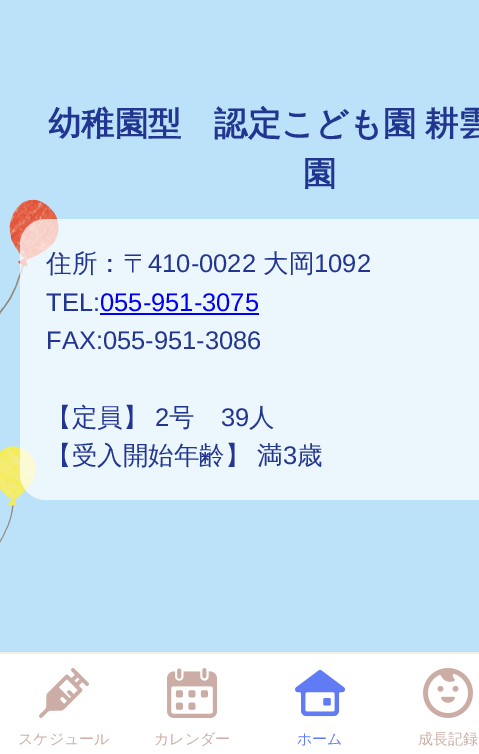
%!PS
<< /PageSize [479 754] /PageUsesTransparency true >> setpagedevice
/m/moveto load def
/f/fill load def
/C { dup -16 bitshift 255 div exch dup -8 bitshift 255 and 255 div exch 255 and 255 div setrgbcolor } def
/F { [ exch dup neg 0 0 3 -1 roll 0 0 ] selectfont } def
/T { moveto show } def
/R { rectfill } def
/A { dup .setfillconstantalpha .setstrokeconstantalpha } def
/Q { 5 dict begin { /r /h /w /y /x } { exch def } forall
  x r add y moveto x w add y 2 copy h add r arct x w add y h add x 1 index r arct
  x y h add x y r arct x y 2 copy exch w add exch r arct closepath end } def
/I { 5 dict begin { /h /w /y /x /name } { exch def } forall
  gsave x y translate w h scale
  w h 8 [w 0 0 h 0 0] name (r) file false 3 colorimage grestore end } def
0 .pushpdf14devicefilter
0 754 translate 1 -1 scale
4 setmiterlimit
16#FFFFFF C
0 0 479 754 R
(1.rgb) 0 0 479 652 I
/WenQuanYiZenHei-Bold 33.25 F
16#223590 C
48 135 m -1 0 32 (幼稚園型　認定こども園 耕雲) widthshow
(園) 303 185 T
0.7 A
16#FFFFFF C
20 219 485 281 26 Q f
/WenQuanYiZenHei-Medium 25.5 F
1 A
16#223590 C
(住所：〒) 46 272 T
/LiberationSans-Regular 25.5 F
(410-0022) 148 272 T
/WenQuanYiZenHei-Medium 25.5 F
(大岡) 263 272 T
/LiberationSans-Regular 25.5 F
(1092) 314 272 T
(TEL:) 46 311 T
16#0000EE C
(055-951-3075) 100 311 T
100 313 159 2 R
16#223590 C
(FAX:055-951-3086) 46 349 T
/WenQuanYiZenHei-Medium 25.5 F
(【定員】) 46 426 T
/LiberationSans-Regular 25.5 F
(2) 155 426 T
/WenQuanYiZenHei-Medium 25.5 F
(号) 169 426 T
/LiberationSans-Regular 25.5 F
(39) 221 426 T
/WenQuanYiZenHei-Medium 25.5 F
(人) 249 426 T
46 464 m -1 0 32 (【受入開始年齢】 満) widthshow
/LiberationSans-Regular 25.5 F
(3) 283 464 T
/WenQuanYiZenHei-Medium 25.5 F
(歳) 297 464 T
16#F5EEE5 C
0 652 479 2 R
(2.rgb) 39 668 50 50 I
/WenQuanYiZenHei-Medium 15 F
16#CCADA5 C
(スケジュール) 18 744 T
(3.rgb) 167 668 50 50 I
(カレンダー) 154 744 T
(4.rgb) 295 670 50 47 I
16#607BF4 C
(ホーム) 297 744 T
(5.rgb) 423 668 50 50 I
16#CCADA5 C
(成長記録) 418 744 T
.poppdf14devicefilter showpage
